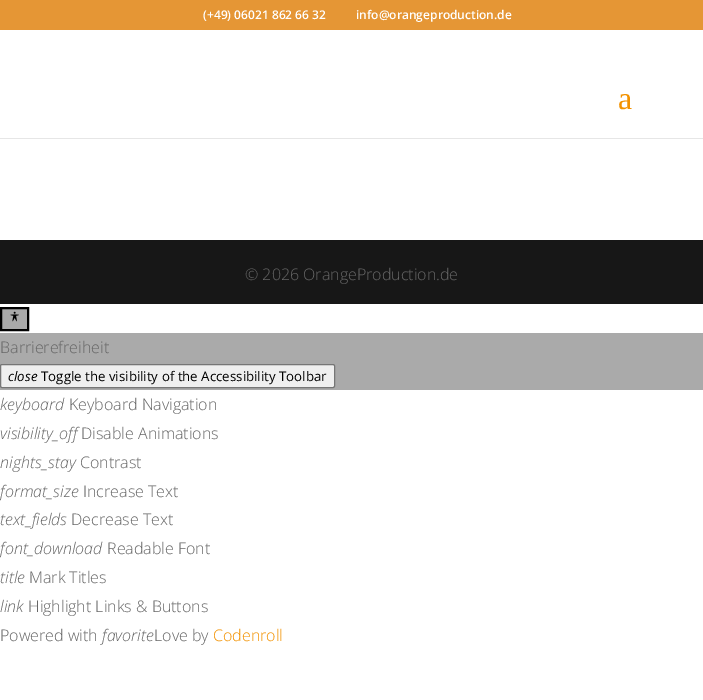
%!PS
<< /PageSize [703 700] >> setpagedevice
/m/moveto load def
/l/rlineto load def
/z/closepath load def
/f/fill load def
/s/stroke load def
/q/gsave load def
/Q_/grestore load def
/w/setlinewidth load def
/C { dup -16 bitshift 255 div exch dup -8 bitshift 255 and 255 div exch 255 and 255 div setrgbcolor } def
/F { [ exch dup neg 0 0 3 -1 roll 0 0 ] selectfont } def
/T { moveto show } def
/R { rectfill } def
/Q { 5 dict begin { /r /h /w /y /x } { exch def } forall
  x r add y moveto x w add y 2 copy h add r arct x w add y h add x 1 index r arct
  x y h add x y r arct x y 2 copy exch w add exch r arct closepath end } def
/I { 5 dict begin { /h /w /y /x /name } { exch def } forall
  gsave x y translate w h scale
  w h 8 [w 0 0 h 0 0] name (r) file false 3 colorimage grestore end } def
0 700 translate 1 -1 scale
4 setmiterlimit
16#FFFFFF C
0 0 703 700 R
16#E59635 C
0 0 703 30 R
/OpenSans-SemiBold 12 F
16#FFFFFF C
(\(+49\) 06021 862 66 32) 203 19 T
(info@orangeproduction.de) 356 19 T
16#E6E6E6 C
0 138 703 1 R
/LiberationSerif-Regular 32 F
16#F39200 C
(a) 618 109 T
16#171717 C
0 240 703 64 R
/OpenSans-Light 16 F
16#666666 C
(© 2026 OrangeProduction.de) 245 280 T
16#AAAAAA C
1 308 m 27 0 l 0 22 l -27 0 l z q f Q_
16#000000 C
2 w
s
(1.rgb) 10 311 9 11 I
16#AAAAAA C
0 333 703 57 R
16#666666 C
(Barrierefreiheit) 0 353 T
16#EFEFEF C
.5 364.5 334 23 1.5 Q q f Q_
16#767676 C
1 w
s
/OpenSans-Italic 13.3 F
16#000000 C
(close) 8 381 T
/OpenSans-Regular 13.3 F
(Toggle the visibility of the Accessibility Toolbar) 41 381 T
/OpenSans-LightItalic 16 F
16#666666 C
(keyboard) 0 410 T
/OpenSans-Light 16 F
(Keyboard Navigation) 69 410 T
/OpenSans-LightItalic 16 F
(visibility_off) 0 439 T
/OpenSans-Light 16 F
(Disable Animations) 81 439 T
/OpenSans-LightItalic 16 F
(nights_stay) 0 468 T
/OpenSans-Light 16 F
(Contrast) 80 468 T
/OpenSans-LightItalic 16 F
(format_size) 0 497 T
/OpenSans-Light 16 F
(Increase Text) 83 497 T
/OpenSans-LightItalic 16 F
(text_fields) 0 525 T
/OpenSans-Light 16 F
(Decrease Text) 71 525 T
/OpenSans-LightItalic 16 F
(font_download) 0 554 T
/OpenSans-Light 16 F
(Readable Font) 107 554 T
/OpenSans-LightItalic 16 F
(title) 0 583 T
/OpenSans-Light 16 F
(Mark Titles) 29 583 T
/OpenSans-LightItalic 16 F
(link) 0 612 T
/OpenSans-Light 16 F
(Highlight Links & Buttons) 28 612 T
(Powered with) 0 641 T
/OpenSans-LightItalic 16 F
(favorite) 102 641 T
/OpenSans-Light 16 F
(Love by) 154 641 T
16#F39200 C
(Codenroll) 213 641 T
showpage
